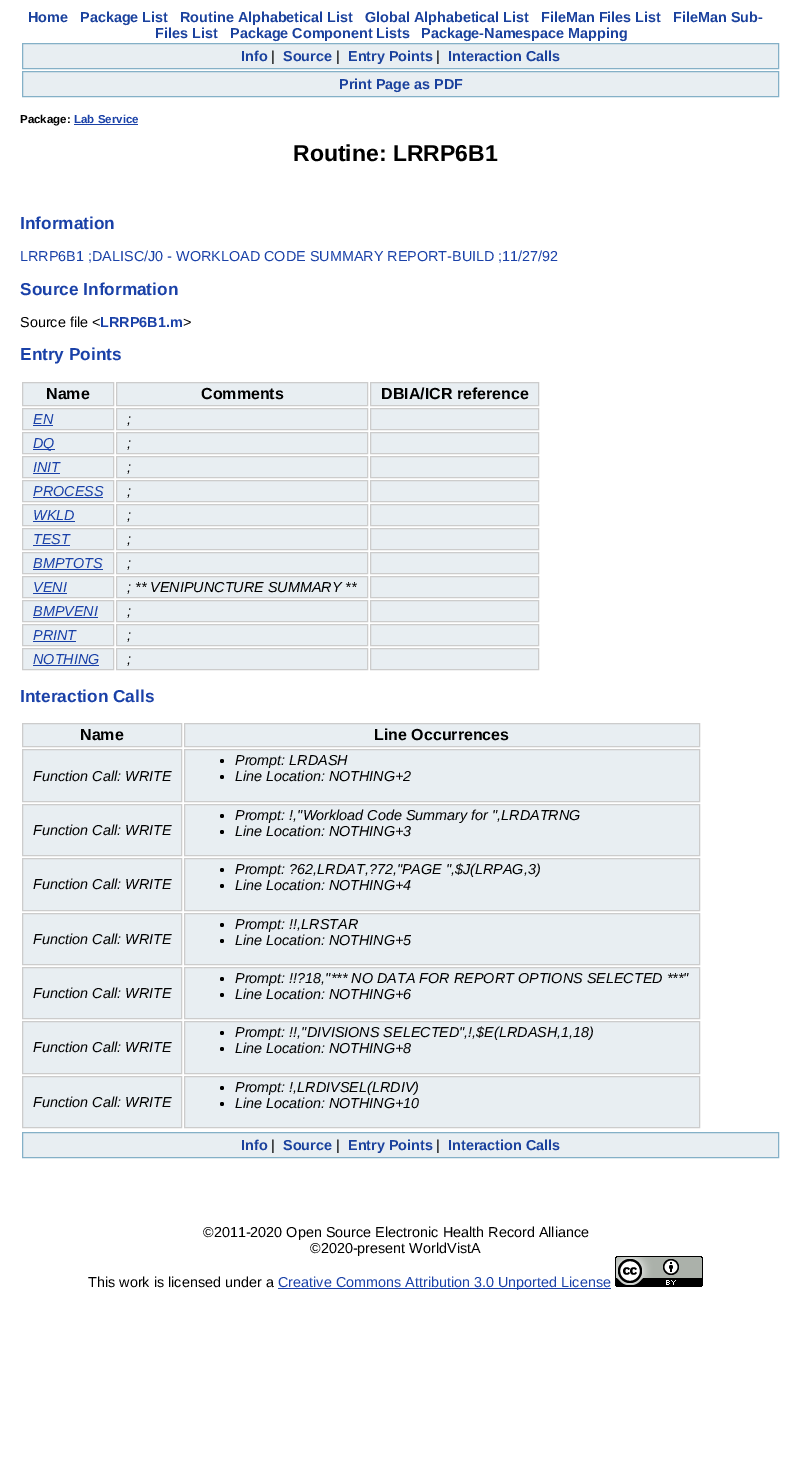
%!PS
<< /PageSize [791 1473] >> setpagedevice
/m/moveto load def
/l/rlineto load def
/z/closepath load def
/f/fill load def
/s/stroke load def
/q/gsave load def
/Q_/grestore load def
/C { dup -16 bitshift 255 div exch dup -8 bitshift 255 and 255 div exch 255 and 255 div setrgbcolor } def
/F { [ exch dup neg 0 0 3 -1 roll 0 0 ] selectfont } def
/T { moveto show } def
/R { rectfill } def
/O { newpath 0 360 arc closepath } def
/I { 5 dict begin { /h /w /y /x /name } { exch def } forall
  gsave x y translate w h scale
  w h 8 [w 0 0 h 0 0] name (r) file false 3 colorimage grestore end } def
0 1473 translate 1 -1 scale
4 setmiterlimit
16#FFFFFF C
0 0 791 1473 R
/LiberationSans-Bold 14.4 F
16#1A419D C
(Home) 28 22 T
(Package List) 80 22 T
(Routine Alphabetical List) 180 22 T
(Global Alphabetical List) 365 22 T
(FileMan Files List) 541 22 T
(FileMan Sub-) 673 22 T
(Files List) 155 38 T
(Package Component Lists) 230 38 T
(Package-Namespace Mapping) 421 38 T
16#E8EEF2 C
22.5 43.5 m 756 0 l 0 25 l -756 0 l z q f Q_
16#84B0C7 C
s
16#1A419D C
(Info) 241 61 T
/LiberationSans-Regular 14.4 F
16#000000 C
(|) 271 61 T
/LiberationSans-Bold 14.4 F
16#1A419D C
(Source) 283 61 T
/LiberationSans-Regular 14.4 F
16#000000 C
(|) 336 61 T
/LiberationSans-Bold 14.4 F
16#1A419D C
(Entry Points) 348 61 T
/LiberationSans-Regular 14.4 F
16#000000 C
(|) 436 61 T
/LiberationSans-Bold 14.4 F
16#1A419D C
(Interaction Calls) 448 61 T
16#E8EEF2 C
22.5 71.5 m 756 0 l 0 25 l -756 0 l z q f Q_
16#84B0C7 C
s
16#1A419D C
(Print Page as PDF) 339 89 T
/LiberationSans-Bold 11.5 F
16#000000 C
(Package:) 20 123 T
16#1A41A8 C
(Lab Service) 74 123 T
74 124 64 1 R
/LiberationSans-Bold 23 F
16#000000 C
(Routine: LRRP6B1) 293 161 T
/LiberationSans-Bold 17.25 F
16#1A41A8 C
(Information) 20 229 T
/LiberationSans-Regular 14.4 F
(LRRP6B1 ;DALISC/J0 - WORKLOAD CODE SUMMARY REPORT-BUILD ;11/27/92) 20 261 T
/LiberationSans-Bold 17.25 F
(Source Information) 20 295 T
/LiberationSans-Regular 14.4 F
16#000000 C
(Source file <) 20 327 T
/LiberationSans-Bold 14.4 F
16#1A41A8 C
(LRRP6B1.m) 100 327 T
/LiberationSans-Regular 14.4 F
16#000000 C
(>) 183 327 T
/LiberationSans-Bold 17.25 F
16#1A41A8 C
(Entry Points) 20 360 T
16#E8EEF2 C
22.5 382.5 m 91 0 l 0 23 l -91 0 l z q f Q_
16#CCCCCC C
s
/LiberationSans-Bold 16 F
16#000000 C
(Name) 46 399 T
16#E8EEF2 C
116.5 382.5 m 251 0 l 0 23 l -251 0 l z q f Q_
16#CCCCCC C
s
16#000000 C
(Comments) 201 399 T
16#E8EEF2 C
370.5 382.5 m 168 0 l 0 23 l -168 0 l z q f Q_
16#CCCCCC C
s
16#000000 C
(DBIA/ICR reference) 381 399 T
16#E8EEF2 C
22.5 408.5 m 91 0 l 0 21 l -91 0 l z q f Q_
16#CCCCCC C
s
/LiberationSans-Italic 14.4 F
16#1A41A8 C
(EN) 33 424 T
33 425 20 1 R
16#E8EEF2 C
116.5 408.5 m 251 0 l 0 21 l -251 0 l z q f Q_
16#CCCCCC C
s
16#000000 C
(;) 127 424 T
16#E8EEF2 C
370.5 408.5 m 168 0 l 0 21 l -168 0 l z q f Q_
16#CCCCCC C
s
16#E8EEF2 C
22.5 432.5 m 91 0 l 0 21 l -91 0 l z q f Q_
16#CCCCCC C
s
16#1A41A8 C
33 449 22 1 R
(DQ) 33 448 T
16#E8EEF2 C
116.5 432.5 m 251 0 l 0 21 l -251 0 l z q f Q_
16#CCCCCC C
s
16#000000 C
(;) 127 448 T
16#E8EEF2 C
370.5 432.5 m 168 0 l 0 21 l -168 0 l z q f Q_
16#CCCCCC C
s
16#E8EEF2 C
22.5 456.5 m 91 0 l 0 21 l -91 0 l z q f Q_
16#CCCCCC C
s
16#1A41A8 C
(INIT) 33 472 T
33 473 27 1 R
16#E8EEF2 C
116.5 456.5 m 251 0 l 0 21 l -251 0 l z q f Q_
16#CCCCCC C
s
16#000000 C
(;) 127 472 T
16#E8EEF2 C
370.5 456.5 m 168 0 l 0 21 l -168 0 l z q f Q_
16#CCCCCC C
s
16#E8EEF2 C
22.5 480.5 m 91 0 l 0 21 l -91 0 l z q f Q_
16#CCCCCC C
s
16#1A41A8 C
(PROCESS) 33 496 T
33 497 70 1 R
16#E8EEF2 C
116.5 480.5 m 251 0 l 0 21 l -251 0 l z q f Q_
16#CCCCCC C
s
16#000000 C
(;) 127 496 T
16#E8EEF2 C
370.5 480.5 m 168 0 l 0 21 l -168 0 l z q f Q_
16#CCCCCC C
s
16#E8EEF2 C
22.5 504.5 m 91 0 l 0 21 l -91 0 l z q f Q_
16#CCCCCC C
s
16#1A41A8 C
(WKLD) 33 520 T
33 521 42 1 R
16#E8EEF2 C
116.5 504.5 m 251 0 l 0 21 l -251 0 l z q f Q_
16#CCCCCC C
s
16#000000 C
(;) 127 520 T
16#E8EEF2 C
370.5 504.5 m 168 0 l 0 21 l -168 0 l z q f Q_
16#CCCCCC C
s
16#E8EEF2 C
22.5 528.5 m 91 0 l 0 21 l -91 0 l z q f Q_
16#CCCCCC C
s
16#1A41A8 C
(TEST) 33 544 T
33 545 37 1 R
16#E8EEF2 C
116.5 528.5 m 251 0 l 0 21 l -251 0 l z q f Q_
16#CCCCCC C
s
16#000000 C
(;) 127 544 T
16#E8EEF2 C
370.5 528.5 m 168 0 l 0 21 l -168 0 l z q f Q_
16#CCCCCC C
s
16#E8EEF2 C
22.5 552.5 m 91 0 l 0 21 l -91 0 l z q f Q_
16#CCCCCC C
s
16#1A41A8 C
(BMPTOTS) 33 568 T
33 569 70 1 R
16#E8EEF2 C
116.5 552.5 m 251 0 l 0 21 l -251 0 l z q f Q_
16#CCCCCC C
s
16#000000 C
(;) 127 568 T
16#E8EEF2 C
370.5 552.5 m 168 0 l 0 21 l -168 0 l z q f Q_
16#CCCCCC C
s
16#E8EEF2 C
22.5 576.5 m 91 0 l 0 21 l -91 0 l z q f Q_
16#CCCCCC C
s
16#1A41A8 C
(VENI) 33 592 T
33 593 34 1 R
16#E8EEF2 C
116.5 576.5 m 251 0 l 0 21 l -251 0 l z q f Q_
16#CCCCCC C
s
16#000000 C
(; ** VENIPUNCTURE SUMMARY **) 127 592 T
16#E8EEF2 C
370.5 576.5 m 168 0 l 0 21 l -168 0 l z q f Q_
16#CCCCCC C
s
16#E8EEF2 C
22.5 600.5 m 91 0 l 0 21 l -91 0 l z q f Q_
16#CCCCCC C
s
16#1A41A8 C
(BMPVENI) 33 616 T
33 617 65 1 R
16#E8EEF2 C
116.5 600.5 m 251 0 l 0 21 l -251 0 l z q f Q_
16#CCCCCC C
s
16#000000 C
(;) 127 616 T
16#E8EEF2 C
370.5 600.5 m 168 0 l 0 21 l -168 0 l z q f Q_
16#CCCCCC C
s
16#E8EEF2 C
22.5 624.5 m 91 0 l 0 21 l -91 0 l z q f Q_
16#CCCCCC C
s
16#1A41A8 C
(PRINT) 33 640 T
33 641 43 1 R
16#E8EEF2 C
116.5 624.5 m 251 0 l 0 21 l -251 0 l z q f Q_
16#CCCCCC C
s
16#000000 C
(;) 127 640 T
16#E8EEF2 C
370.5 624.5 m 168 0 l 0 21 l -168 0 l z q f Q_
16#CCCCCC C
s
16#E8EEF2 C
22.5 648.5 m 91 0 l 0 21 l -91 0 l z q f Q_
16#CCCCCC C
s
16#1A41A8 C
(NOTHING) 33 664 T
33 665 66 1 R
16#E8EEF2 C
116.5 648.5 m 251 0 l 0 21 l -251 0 l z q f Q_
16#CCCCCC C
s
16#000000 C
(;) 127 664 T
16#E8EEF2 C
370.5 648.5 m 168 0 l 0 21 l -168 0 l z q f Q_
16#CCCCCC C
s
/LiberationSans-Bold 17.25 F
16#1A41A8 C
(Interaction Calls) 20 702 T
16#E8EEF2 C
22.5 723.5 m 159 0 l 0 23 l -159 0 l z q f Q_
16#CCCCCC C
s
/LiberationSans-Bold 16 F
16#000000 C
(Name) 80 740 T
16#E8EEF2 C
184.5 723.5 m 515 0 l 0 23 l -515 0 l z q f Q_
16#CCCCCC C
s
16#000000 C
(Line Occurrences) 374 740 T
16#E8EEF2 C
22.5 749.5 m 159 0 l 0 52 l -159 0 l z q f Q_
16#CCCCCC C
s
/LiberationSans-Italic 14.4 F
16#000000 C
(Function Call: WRITE) 33 781 T
16#E8EEF2 C
184.5 749.5 m 515 0 l 0 52 l -515 0 l z q f Q_
16#CCCCCC C
s
16#000000 C
222 761 2 O f
(Prompt: LRDASH) 235 765 T
222 777 2 O f
(Line Location: NOTHING+2) 235 781 T
16#E8EEF2 C
22.5 804.5 m 159 0 l 0 51 l -159 0 l z q f Q_
16#CCCCCC C
s
16#000000 C
(Function Call: WRITE) 33 835 T
16#E8EEF2 C
184.5 804.5 m 515 0 l 0 51 l -515 0 l z q f Q_
16#CCCCCC C
s
16#000000 C
222 816 2 O f
(Prompt: !,"Workload Code Summary for ",LRDATRNG) 235 820 T
222 832 2 O f
(Line Location: NOTHING+3) 235 836 T
16#E8EEF2 C
22.5 858.5 m 159 0 l 0 52 l -159 0 l z q f Q_
16#CCCCCC C
s
16#000000 C
(Function Call: WRITE) 33 889 T
16#E8EEF2 C
184.5 858.5 m 515 0 l 0 52 l -515 0 l z q f Q_
16#CCCCCC C
s
16#000000 C
222 870 2 O f
(Prompt: ?62,LRDAT,?72,"PAGE ",$J\(LRPAG,3\)) 235 874 T
222 886 2 O f
(Line Location: NOTHING+4) 235 890 T
16#E8EEF2 C
22.5 913.5 m 159 0 l 0 51 l -159 0 l z q f Q_
16#CCCCCC C
s
16#000000 C
(Function Call: WRITE) 33 944 T
16#E8EEF2 C
184.5 913.5 m 515 0 l 0 51 l -515 0 l z q f Q_
16#CCCCCC C
s
16#000000 C
222 925 2 O f
(Prompt: !!,LRSTAR) 235 929 T
222 941 2 O f
(Line Location: NOTHING+5) 235 945 T
16#E8EEF2 C
22.5 967.5 m 159 0 l 0 51 l -159 0 l z q f Q_
16#CCCCCC C
s
16#000000 C
(Function Call: WRITE) 33 998 T
16#E8EEF2 C
184.5 967.5 m 515 0 l 0 51 l -515 0 l z q f Q_
16#CCCCCC C
s
16#000000 C
222 979 2 O f
(Prompt: !!?18,"*** NO DATA FOR REPORT OPTIONS SELECTED ***") 235 983 T
222 995 2 O f
(Line Location: NOTHING+6) 235 999 T
16#E8EEF2 C
22.5 1021.5 m 159 0 l 0 52 l -159 0 l z q f Q_
16#CCCCCC C
s
16#000000 C
(Function Call: WRITE) 33 1052 T
16#E8EEF2 C
184.5 1021.5 m 515 0 l 0 52 l -515 0 l z q f Q_
16#CCCCCC C
s
16#000000 C
222 1033 2 O f
(Prompt: !!,"DIVISIONS SELECTED",!,$E\(LRDASH,1,18\)) 235 1037 T
222 1049 2 O f
(Line Location: NOTHING+8) 235 1053 T
16#E8EEF2 C
22.5 1076.5 m 159 0 l 0 51 l -159 0 l z q f Q_
16#CCCCCC C
s
16#000000 C
(Function Call: WRITE) 33 1107 T
16#E8EEF2 C
184.5 1076.5 m 515 0 l 0 51 l -515 0 l z q f Q_
16#CCCCCC C
s
16#000000 C
222 1088 2 O f
(Prompt: !,LRDIVSEL\(LRDIV\)) 235 1092 T
222 1104 2 O f
(Line Location: NOTHING+10) 235 1108 T
16#E8EEF2 C
22.5 1132.5 m 756 0 l 0 25 l -756 0 l z q f Q_
16#84B0C7 C
s
/LiberationSans-Bold 14.4 F
16#1A419D C
(Info) 241 1150 T
/LiberationSans-Regular 14.4 F
16#000000 C
(|) 271 1150 T
/LiberationSans-Bold 14.4 F
16#1A419D C
(Source) 283 1150 T
/LiberationSans-Regular 14.4 F
16#000000 C
(|) 336 1150 T
/LiberationSans-Bold 14.4 F
16#1A419D C
(Entry Points) 348 1150 T
/LiberationSans-Regular 14.4 F
16#000000 C
(|) 436 1150 T
/LiberationSans-Bold 14.4 F
16#1A419D C
(Interaction Calls) 448 1150 T
/LiberationSans-Regular 14.4 F
16#000000 C
(©2011-2020 Open Source Electronic Health Record Alliance) 203 1237 T
(©2020-present WorldVistA) 310 1253 T
(This work is licensed under a) 88 1287 T
16#1A41A8 C
278 1288 333 1 R
(Creative Commons Attribution 3.0 Unported License) 278 1287 T
(1.rgb) 615 1256 88 31 I
showpage
